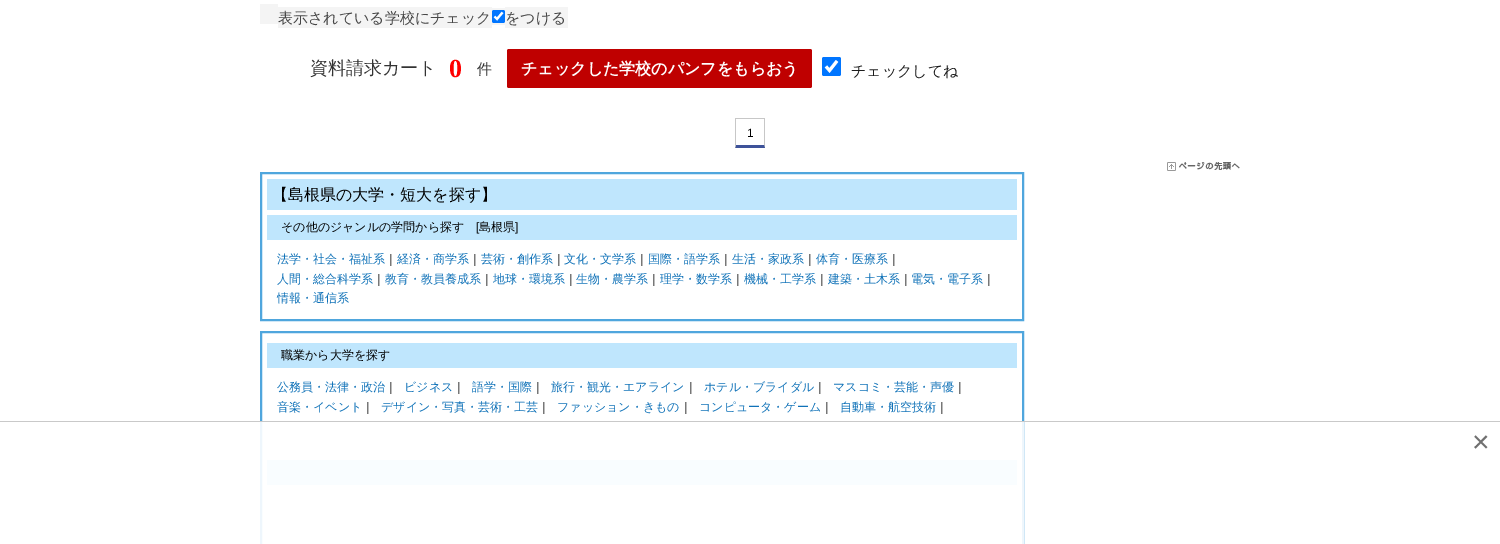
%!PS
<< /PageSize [1500 544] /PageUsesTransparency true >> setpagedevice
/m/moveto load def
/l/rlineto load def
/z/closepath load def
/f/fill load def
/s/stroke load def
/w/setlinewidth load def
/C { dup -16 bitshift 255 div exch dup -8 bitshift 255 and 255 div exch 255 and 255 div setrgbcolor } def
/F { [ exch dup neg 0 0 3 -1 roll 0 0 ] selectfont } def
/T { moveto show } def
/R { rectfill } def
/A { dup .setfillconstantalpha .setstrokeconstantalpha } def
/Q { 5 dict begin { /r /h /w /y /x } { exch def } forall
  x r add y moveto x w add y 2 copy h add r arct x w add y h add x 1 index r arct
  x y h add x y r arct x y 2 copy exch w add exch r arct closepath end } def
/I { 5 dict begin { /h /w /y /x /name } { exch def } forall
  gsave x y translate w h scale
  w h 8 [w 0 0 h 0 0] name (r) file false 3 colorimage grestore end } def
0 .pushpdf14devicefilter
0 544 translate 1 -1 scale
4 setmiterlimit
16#FFFFFF C
0 0 1500 544 R
16#F4F4F4 C
260 4 18 20 R
278 7 214 21 R
492 8 13 17 R
505 7 63 21 R
/WenQuanYiZenHei-Medium 15 F
16#464646 C
(表示されている学校にチェック) 278 23 T
16#0075FF C
492 10 13 13 2 Q f
16#FFFFFF C
2.1 w
494.5 16.5 m 2.5 2.5 l 5.5 -6.5 l s
16#464646 C
(をつける) 505 23 T
/WenQuanYiZenHei-Medium 18 F
16#333333 C
(資料請求カート) 310 74 T
/WenQuanYiZenHei-Medium 15 F
(件) 477 74 T
/LiberationSerif-Bold 26 F
16#FF0000 C
(0) 449 77 T
16#BF0000 C
507 49 305 39 2 Q f
/WenQuanYiZenHei-Bold 16 F
16#FFFFFF C
(チェックした学校のパンフをもらおう) 521 74 T
16#0075FF C
822 57 19 19 2 Q f
16#FFFFFF C
3 w
826 66.5 m 3.5 4 l 7.5 -9.5 l s
/WenQuanYiZenHei-Medium 15 F
16#1C1C1C C
(チェックしてね) 851 76 T
16#C7C7C7 C
735 118 30 1 R
765 118 m 0 30 l -1 -3 l 0 -26 l z f
16#3E5299 C
765 148 m -30 0 l 1 -3 l 28 0 l z f
16#C7C7C7 C
735 148 m 0 -30 l 1 1 l 0 26 l z f
/LiberationSans-Regular 12 F
16#000000 C
(1) 747 137 T
(1.rgb) 1167 162 73 9 I
16#4FA6DD C
2 w
261 173 762 147 rectstroke
16#BFE6FD C
267 179 750 31 R
/WenQuanYiZenHei-Medium 16 F
16#000000 C
(【島根県の大学・短大を探す】) 272 200 T
16#BFE6FD C
267 215 750 25 R
/WenQuanYiZenHei-Medium 12 F
16#000000 C
(その他のジャンルの学問から探す) 281 231 T
/LiberationSans-Regular 12 F
([) 476 231 T
/WenQuanYiZenHei-Medium 12 F
(島根県) 479 231 T
/LiberationSans-Regular 12 F
(]) 515 231 T
/WenQuanYiZenHei-Medium 12 F
16#1072B8 C
(法学・社会・福祉系) 277 263 T
16#000000 C
(｜) 385 263 T
16#1072B8 C
(経済・商学系) 397 263 T
16#000000 C
(｜) 469 263 T
16#1072B8 C
(芸術・創作系) 481 263 T
16#000000 C
(｜) 553 263 T
16#1072B8 C
(文化・文学系) 564 263 T
16#000000 C
(｜) 636 263 T
16#1072B8 C
(国際・語学系) 648 263 T
16#000000 C
(｜) 720 263 T
16#1072B8 C
(生活・家政系) 732 263 T
16#000000 C
(｜) 804 263 T
16#1072B8 C
(体育・医療系) 816 263 T
16#000000 C
(｜) 888 263 T
16#1072B8 C
(人間・総合科学系) 277 283 T
16#000000 C
(｜) 373 283 T
16#1072B8 C
(教育・教員養成系) 385 283 T
16#000000 C
(｜) 481 283 T
16#1072B8 C
(地球・環境系) 493 283 T
16#000000 C
(｜) 565 283 T
16#1072B8 C
(生物・農学系) 576 283 T
16#000000 C
(｜) 648 283 T
16#1072B8 C
(理学・数学系) 660 283 T
16#000000 C
(｜) 732 283 T
16#1072B8 C
(機械・工学系) 744 283 T
16#000000 C
(｜) 816 283 T
16#1072B8 C
(建築・土木系) 828 283 T
16#000000 C
(｜) 900 283 T
16#1072B8 C
(電気・電子系) 911 283 T
16#000000 C
(｜) 983 283 T
16#1072B8 C
(情報・通信系) 277 302 T
16#4FA6DD C
261 332 762 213 rectstroke
16#BFE6FD C
267 343 750 25 R
16#000000 C
(職業から大学を探す) 281 359 T
16#1072B8 C
(公務員・法律・政治) 277 391 T
16#000000 C
(｜) 385 391 T
16#1072B8 C
(ビジネス) 404 391 T
16#000000 C
(｜) 453 391 T
16#1072B8 C
(語学・国際) 472 391 T
16#000000 C
(｜) 532 391 T
16#1072B8 C
(旅行・観光・エアライン) 551 391 T
16#000000 C
(｜) 685 391 T
16#1072B8 C
(ホテル・ブライダル) 704 391 T
16#000000 C
(｜) 814 391 T
16#1072B8 C
(マスコミ・芸能・声優) 833 391 T
16#000000 C
(｜) 954 391 T
16#1072B8 C
(音楽・イベント) 277 411 T
16#000000 C
(｜) 362 411 T
16#1072B8 C
(デザイン・写真・芸術・工芸) 381 411 T
16#000000 C
(｜) 538 411 T
16#1072B8 C
(ファッション・きもの) 557 411 T
16#000000 C
(｜) 680 411 T
16#1072B8 C
(コンピュータ・ゲーム) 699 411 T
16#000000 C
(｜) 821 411 T
16#1072B8 C
(自動車・航空技術) 840 411 T
16#000000 C
(｜) 936 411 T
16#BFE6FD C
267 460 750 25 R
0.9 A
16#FFFFFF C
260 422 764 122 R
1 A
16#C9C9C9 C
0 421 1500 1 R
/LiberationSans-Regular 30 F
16#707070 C
(×) 1472 452 T
.poppdf14devicefilter showpage
